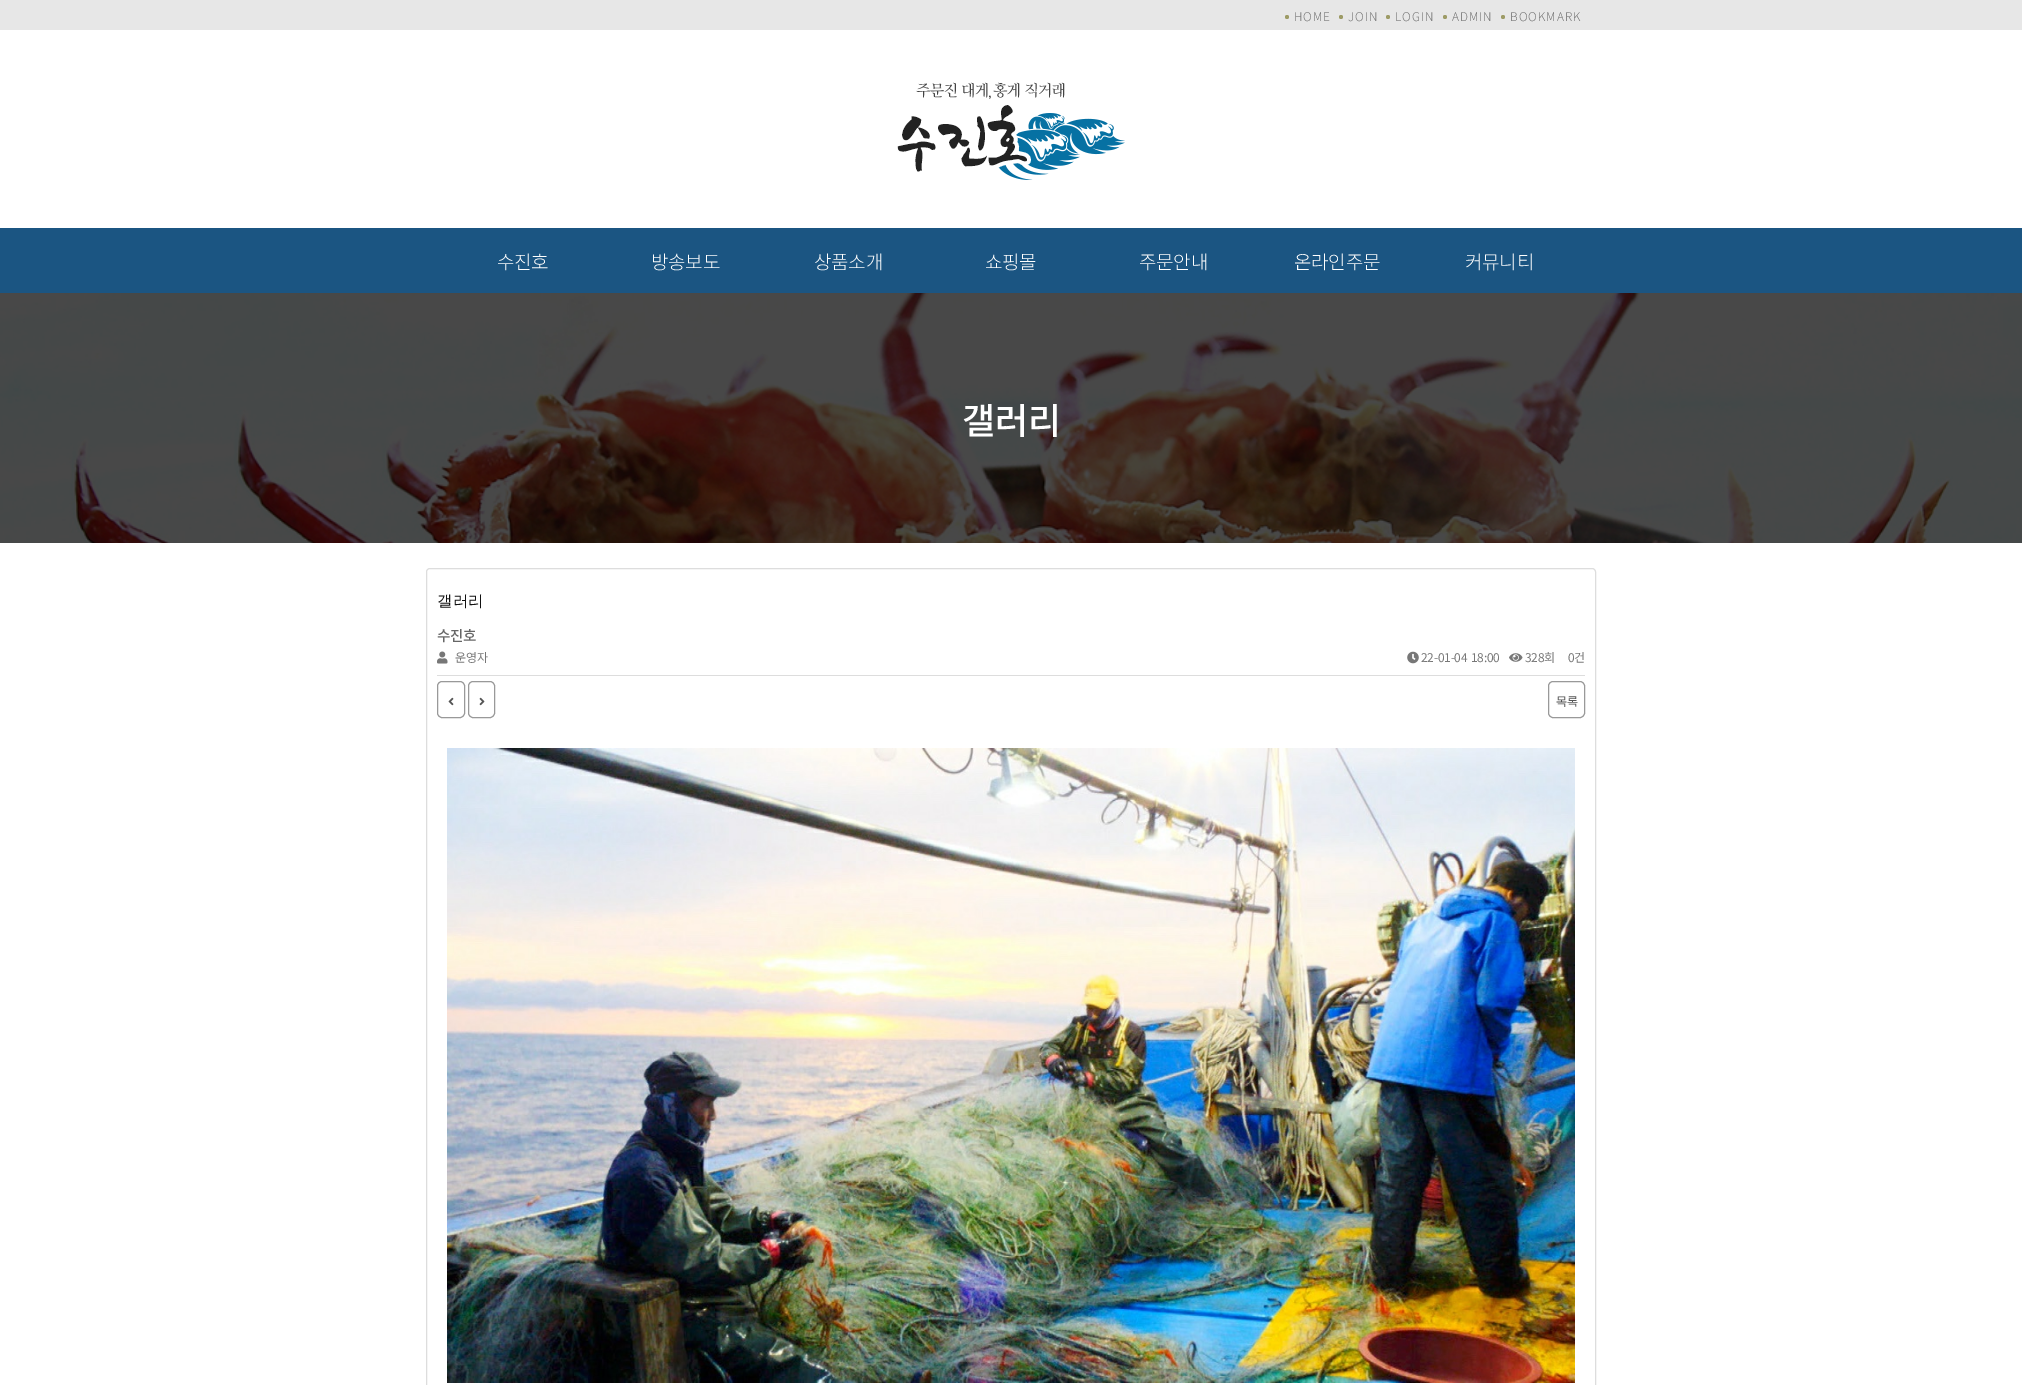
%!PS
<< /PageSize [2022 1385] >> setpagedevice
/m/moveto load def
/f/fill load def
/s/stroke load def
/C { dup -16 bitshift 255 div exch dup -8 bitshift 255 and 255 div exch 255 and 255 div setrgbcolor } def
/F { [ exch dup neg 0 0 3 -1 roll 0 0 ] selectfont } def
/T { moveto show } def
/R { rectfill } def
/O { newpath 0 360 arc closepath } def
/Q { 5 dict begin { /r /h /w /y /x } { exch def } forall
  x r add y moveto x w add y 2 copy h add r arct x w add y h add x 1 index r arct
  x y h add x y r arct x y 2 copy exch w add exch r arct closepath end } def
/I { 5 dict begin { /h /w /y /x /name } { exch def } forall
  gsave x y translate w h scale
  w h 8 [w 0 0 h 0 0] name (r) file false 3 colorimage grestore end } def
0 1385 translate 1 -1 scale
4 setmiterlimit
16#FFFFFF C
0 0 2022 1385 R
16#E7E7E7 C
0 0 2022 30 R
16#9D9B66 C
1287 17 2 O f
/NotoSansKR-ExtraLight 12 F
16#666666 C
1294 21 m 1 0 (HOME) ashow
16#9D9B66 C
1341 17 2 O f
16#666666 C
1348 21 m 1 0 (JOIN) ashow
16#9D9B66 C
1388 17 2 O f
16#666666 C
1395 21 m 1 0 (LOGIN) ashow
16#9D9B66 C
1445 17 2 O f
16#666666 C
1452 21 m 1 0 (ADMIN) ashow
16#9D9B66 C
1503 17 2 O f
16#666666 C
1510 21 m 1 0 (BOOKMARK) ashow
(1.rgb) 897 82 228 98 I
16#1B5582 C
0 228 2022 65 R
/NotoSansKR-Light 19 F
16#FFFFFF C
497 269 m -.25 0 (수진호) ashow
651 269 m -.25 0 (방송보도) ashow
814 269 m -.25 0 (상품소개) ashow
985 269 m -.25 0 (쇼핑몰) ashow
1139 269 m -.25 0 (주문안내) ashow
1294 269 m -.25 0 (온라인주문) ashow
1465 269 m -.25 0 (커뮤니티) ashow
(2.rgb) 0 293 2022 250 I
/NotoSansKR-Medium 36 F
962 434 m -.25 0 (갤러리) ashow
16#DDDDDD C
426.5 568.5 1169 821 3.5 Q s
/WenQuanYiZenHei-Medium 15.5 F
16#111111 C
(갤러리) 437 606 T
/NotoSansKR-Medium 14.5 F
16#666666 C
437 641 m -.25 0 (수진호) ashow
16#DDDDDD C
437 675 1148 1 R
(3.rgb) 437 651 11 13 I
/NotoSansKR-Regular 12 F
16#777777 C
455 662 m -.25 0 (운영자) ashow
(4.rgb) 1407 651 12 13 I
1421 662 m 1 0 32 -.25 0 (22-01-04 18:00) awidthshow
(5.rgb) 1509 653 14 9 I
1525 662 m -.25 0 (328회) ashow
1568 662 m -.25 0 (0건) ashow
16#999999 C
437.5 681.5 27 36 4.5 Q s
(6.rgb) 448 697 6 9 I
468.5 681.5 26 36 4.5 Q s
(7.rgb) 479 697 6 9 I
1548.5 681.5 36 36 4.5 Q s
16#555555 C
1556 706 m -.25 0 (목록) ashow
(8.rgb) 447 748 1128 635 I
showpage
